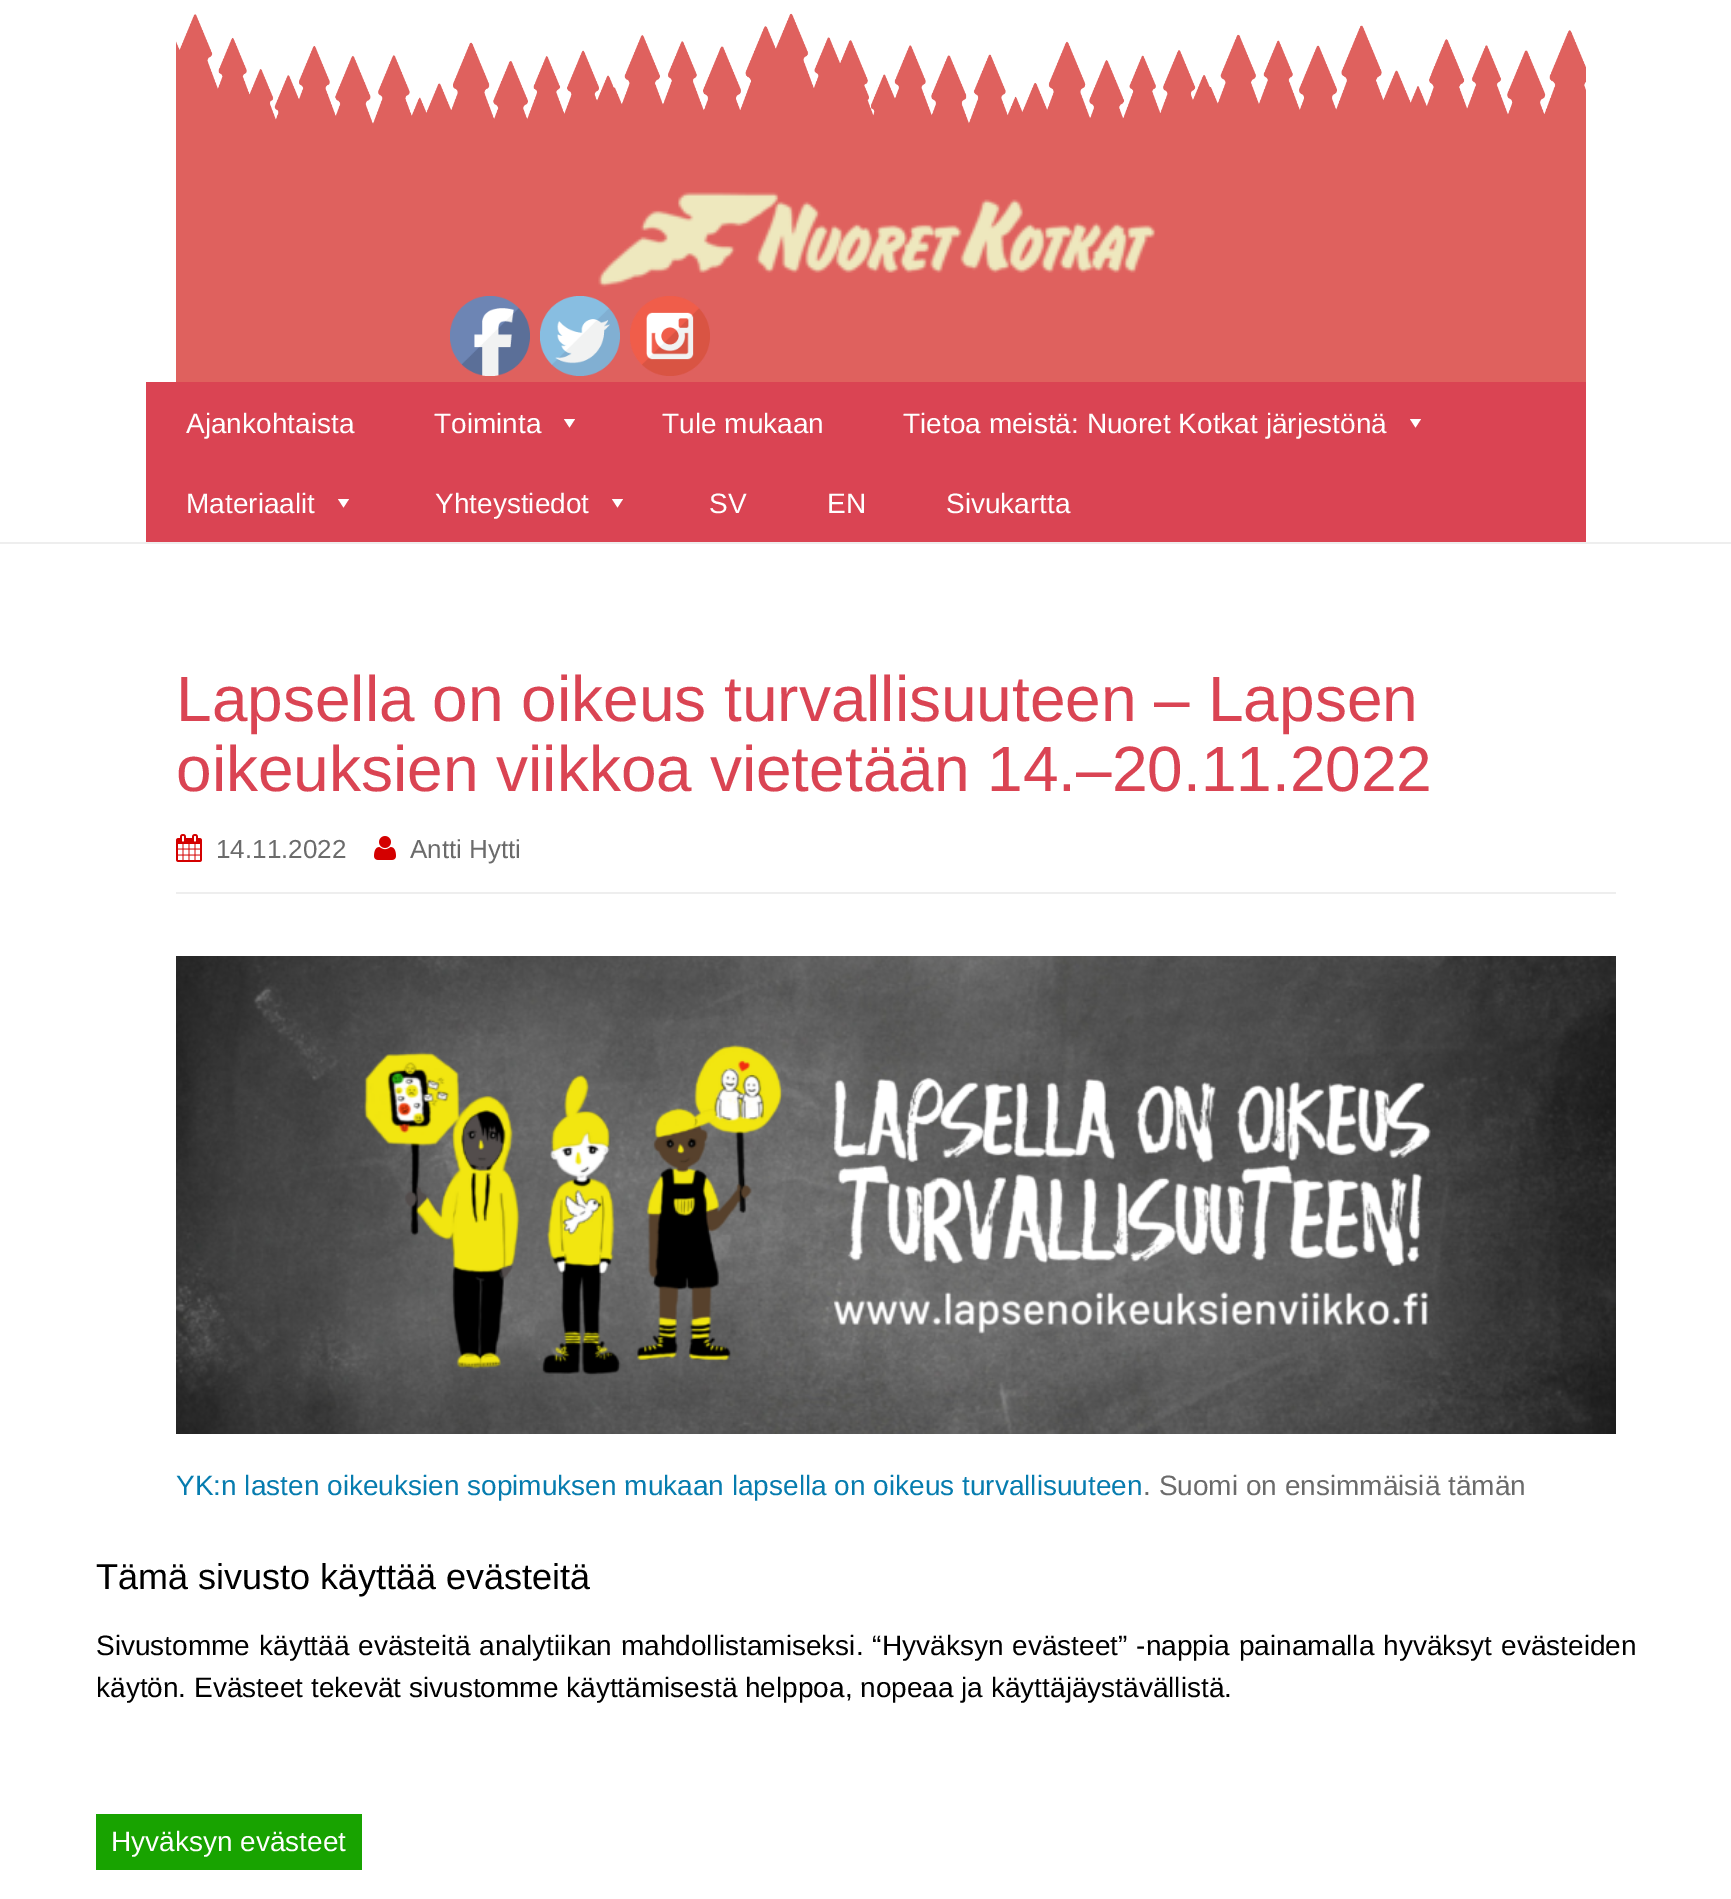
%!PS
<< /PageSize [1731 1899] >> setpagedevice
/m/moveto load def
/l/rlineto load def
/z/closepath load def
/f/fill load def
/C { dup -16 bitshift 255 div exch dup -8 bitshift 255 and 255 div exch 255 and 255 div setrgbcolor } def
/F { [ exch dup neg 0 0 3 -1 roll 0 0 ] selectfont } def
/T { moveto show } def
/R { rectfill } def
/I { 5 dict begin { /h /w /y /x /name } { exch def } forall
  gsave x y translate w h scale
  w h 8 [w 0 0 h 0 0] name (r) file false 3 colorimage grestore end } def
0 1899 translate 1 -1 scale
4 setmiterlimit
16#FFFFFF C
0 0 1731 1899 R
16#EEEEEE C
0 542 1731 2 R
(1.rgb) 176 13 1410 369 I
(2.rgb) 598 192 558 95 I
(3.rgb) 450 296 80 80 I
(4.rgb) 540 296 80 80 I
(5.rgb) 630 296 80 80 I
16#DA4453 C
146 382 1440 160 R
/LiberationSans-Regular 28 F
16#FFFFFF C
(Ajankohtaista) 186 433 T
(Toiminta) 434 433 T
575 419 m -5.5 8.5 l -5.5 -8.5 l z f
(Tule mukaan) 662 433 T
(Tietoa meistä: Nuoret Kotkat järjestönä) 903 433 T
1421 419 m -5.5 8.5 l -5.5 -8.5 l z f
(Materiaalit) 186 513 T
349 499 m -5.5 8.5 l -5.5 -8.5 l z f
(Yhteystiedot) 435 513 T
623 499 m -5.5 8.5 l -5.5 -8.5 l z f
(SV) 709 513 T
(EN) 827 513 T
(Sivukartta) 946 513 T
16#EEEEEE C
176 892 1440 2 R
/LiberationSans-Regular 64 F
16#DA4453 C
(Lapsella on oikeus turvallisuuteen – Lapsen) 176 721 T
(oikeuksien viikkoa vietetään 14.–20.11.2022) 176 791 T
(6.rgb) 176 834 26 28 I
/LiberationSans-Regular 26 F
16#6B6B6B C
(14.11.2022) 216 858 T
(7.rgb) 374 836 22 24 I
(Antti Hytti) 410 858 T
(8.rgb) 176 956 1440 478 I
/LiberationSans-Regular 28 F
16#067CAF C
(YK:n lasten oikeuksien sopimuksen mukaan lapsella on oikeus turvallisuuteen) 176 1495 T
16#6B6B6B C
(. Suomi on ensimmäisiä tämän) 1143 1495 T
/LiberationSans-Regular 36 F
16#000000 C
(Tämä sivusto käyttää evästeitä) 96 1589 T
/LiberationSans-Regular 28 F
96 1655 m 1.25 0 32 (Sivustomme käyttää evästeitä analytiikan mahdollistamiseksi. “Hyväksyn evästeet” -nappia painamalla hyväksyt evästeiden) widthshow
(käytön. Evästeet tekevät sivustomme käyttämisestä helppoa, nopeaa ja käyttäjäystävällistä.) 96 1697 T
16#18A300 C
96 1814 266 56 R
16#FFFFFF C
(Hyväksyn evästeet) 111 1851 T
showpage
